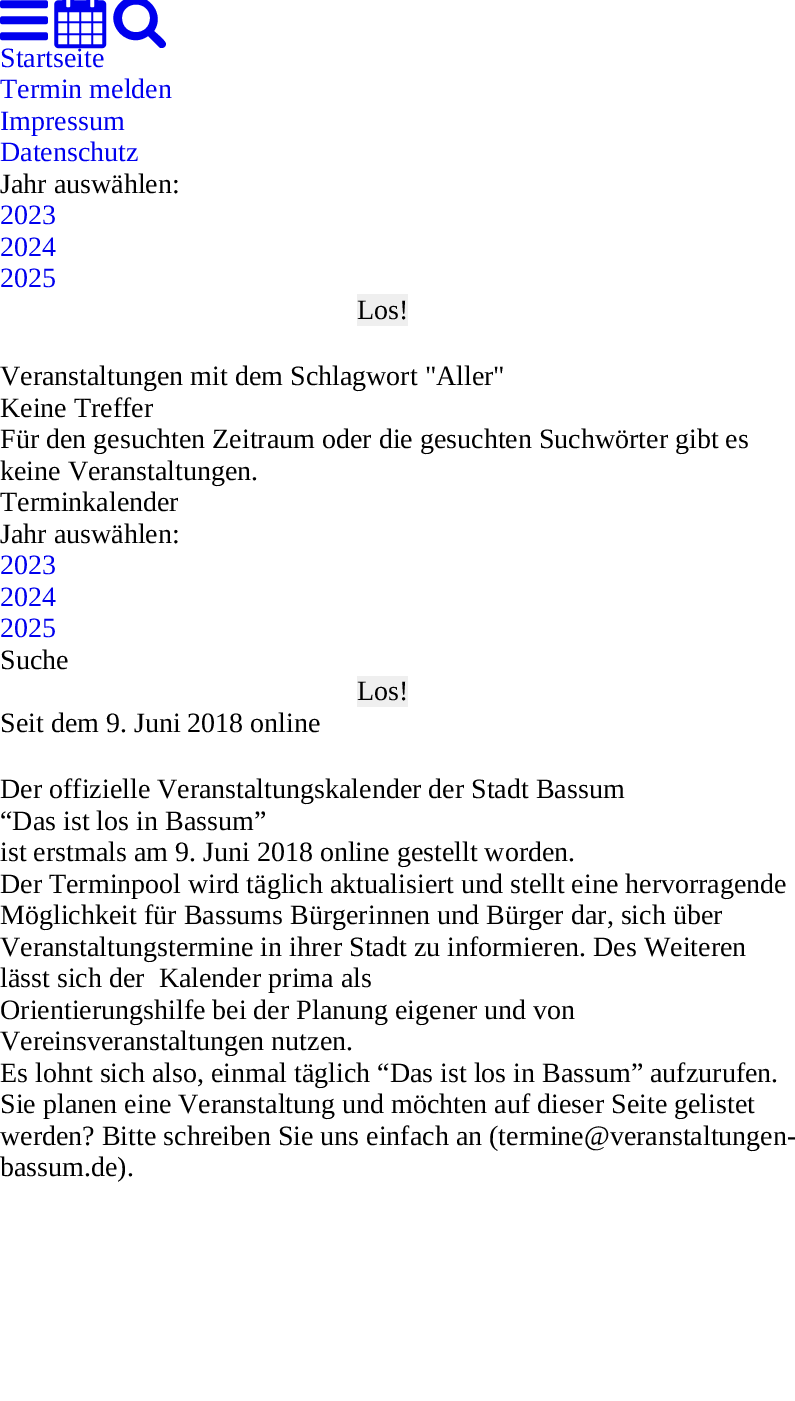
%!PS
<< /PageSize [795 1401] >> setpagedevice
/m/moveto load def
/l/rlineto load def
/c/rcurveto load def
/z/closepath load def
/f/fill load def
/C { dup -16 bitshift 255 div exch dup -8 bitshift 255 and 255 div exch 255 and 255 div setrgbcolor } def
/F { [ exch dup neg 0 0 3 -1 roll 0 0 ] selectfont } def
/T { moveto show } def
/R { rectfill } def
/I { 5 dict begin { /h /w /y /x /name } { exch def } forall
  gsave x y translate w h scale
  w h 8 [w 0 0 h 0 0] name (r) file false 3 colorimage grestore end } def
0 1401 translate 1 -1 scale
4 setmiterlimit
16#FFFFFF C
0 0 795 1401 R
(1.rgb) 0 0 48 41 I
(2.rgb) 54 0 53 49 I
16#0000EE C
150 18 m 0 19 -28 19 -28 0 c 0 -18 28 -18 28 0 c z 166 44 m 0 -3 -10 -11 -12 -13 c 14 -21 -15 -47 -34 -28 c -19 19 7 48 28 33 c 11 11 l 1 1 2 1 3 1 c 2 0 4 -2 4 -4 c z f
/LiberationSerif-Regular 28 F
(Startseite) 0 67 T
(Termin melden) 0 98 T
(Impressum) 0 130 T
(Datenschutz) 0 161 T
16#000000 C
(Jahr auswählen:) 0 193 T
16#0000EE C
(2023) 0 224 T
(2024) 0 256 T
(2025) 0 287 T
16#EFEFEF C
357 294 51 32 R
16#000000 C
(Los!) 357 319 T
(Veranstaltungen mit dem Schlagwort "Aller") 0 385 T
(Keine Treffer) 0 417 T
(Für den gesuchten Zeitraum oder die gesuchten Suchwörter gibt es) 0 448 T
(keine Veranstaltungen.) 0 480 T
(Terminkalender) 0 511 T
(Jahr auswählen:) 0 543 T
16#0000EE C
(2023) 0 574 T
(2024) 0 606 T
(2025) 0 637 T
16#000000 C
(Suche) 0 669 T
16#EFEFEF C
357 676 51 31 R
16#000000 C
(Los!) 357 700 T
(Seit dem 9. Juni 2018 online) 0 732 T
(Der offizielle Veranstaltungskalender der Stadt Bassum) 0 798 T
(“Das ist los in Bassum”) 0 830 T
(ist erstmals am 9. Juni 2018 online gestellt worden.) 0 861 T
(Der Terminpool wird täglich aktualisiert und stellt eine hervorragende) 0 893 T
(Möglichkeit für Bassums Bürgerinnen und Bürger dar, sich über) 0 924 T
(Veranstaltungstermine in ihrer Stadt zu informieren. Des Weiteren) 0 956 T
(lässt sich der  Kalender prima als) 0 987 T
(Orientierungshilfe bei der Planung eigener und von) 0 1019 T
(Vereinsveranstaltungen nutzen.) 0 1050 T
(Es lohnt sich also, einmal täglich “Das ist los in Bassum” aufzurufen.) 0 1082 T
(Sie planen eine Veranstaltung und möchten auf dieser Seite gelistet) 0 1113 T
(werden? Bitte schreiben Sie uns einfach an \(termine@veranstaltungen-) 0 1145 T
(bassum.de\).) 0 1176 T
showpage
